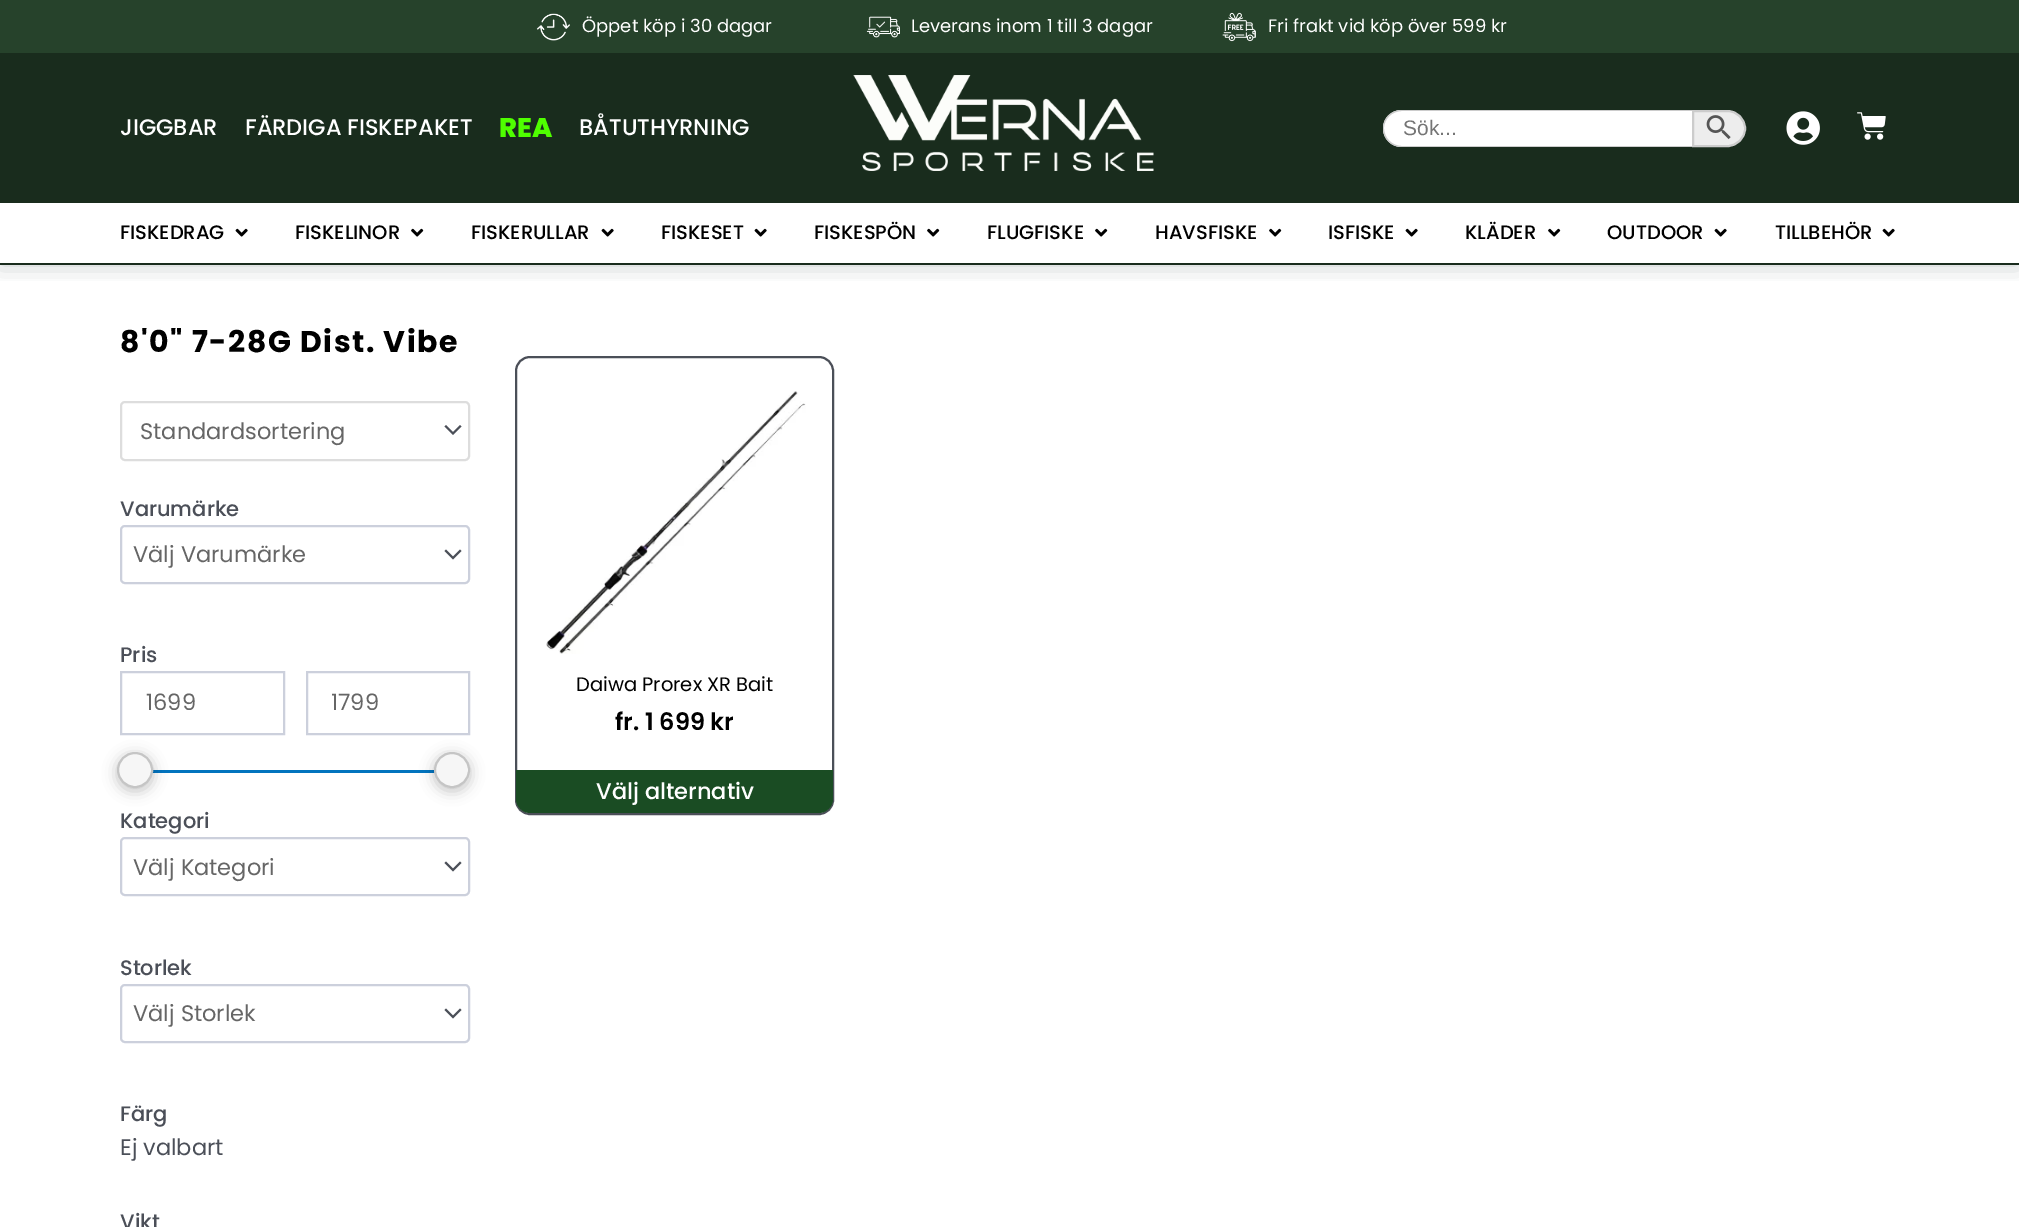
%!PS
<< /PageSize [2019 1227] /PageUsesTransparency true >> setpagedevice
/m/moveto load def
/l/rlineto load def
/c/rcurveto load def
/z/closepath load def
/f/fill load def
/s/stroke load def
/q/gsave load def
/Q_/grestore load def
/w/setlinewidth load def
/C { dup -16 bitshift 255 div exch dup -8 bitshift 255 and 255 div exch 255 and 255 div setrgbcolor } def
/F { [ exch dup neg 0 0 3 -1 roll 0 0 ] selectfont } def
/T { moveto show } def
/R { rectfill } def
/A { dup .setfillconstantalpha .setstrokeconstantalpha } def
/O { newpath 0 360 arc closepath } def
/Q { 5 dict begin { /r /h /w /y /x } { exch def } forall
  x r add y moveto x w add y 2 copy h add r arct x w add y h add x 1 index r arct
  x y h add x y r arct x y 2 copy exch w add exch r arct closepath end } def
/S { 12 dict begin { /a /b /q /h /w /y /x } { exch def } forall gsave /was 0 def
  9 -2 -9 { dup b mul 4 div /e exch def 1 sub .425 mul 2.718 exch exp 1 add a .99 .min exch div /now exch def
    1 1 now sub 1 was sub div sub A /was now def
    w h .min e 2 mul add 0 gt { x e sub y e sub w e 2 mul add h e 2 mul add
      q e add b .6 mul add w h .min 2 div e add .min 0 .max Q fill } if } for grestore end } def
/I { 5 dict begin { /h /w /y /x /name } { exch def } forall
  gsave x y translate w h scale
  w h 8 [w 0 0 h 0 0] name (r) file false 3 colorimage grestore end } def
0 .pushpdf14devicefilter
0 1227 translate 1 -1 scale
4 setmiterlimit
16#FFFFFF C
0 0 2019 1227 R
16#26422B C
0 0 2019 53 R
(1.rgb) 536 13 34 28 I
/Poppins-Regular 18 F
16#FFFFFF C
(Öppet köp i 30 dagar) 582 32 T
(2.rgb) 866 16 34 22 I
(Leverans inom 1 till 3 dagar) 911 32 T
(3.rgb) 1222 12 34 30 I
(Fri frakt vid köp över 599 kr) 1268 32 T
q
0 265 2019 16 rectclip
16#18332F C
0 203 2019 61 0 12 .27 S
Q_
16#192C1D C
0 53 2019 150 R
/Poppins-Medium 22.5 F
16#FFFFFF C
(JIGGBAR) 120 135 T
(FÄRDIGA FISKEPAKET) 245 135 T
/Poppins-ExtraBold 27 F
16#4FFF00 C
(REA) 499 137 T
/Poppins-Medium 22.5 F
16#FFFFFF C
(BÅTUTHYRNING) 579 135 T
(4.rgb) 853 75 301 96 I
1401.5 110 m 290.5 0 l 0 37 l -290.5 0 l -10 0 -18.5 -8.5 -18.5 -18.5 c 0 -10 8.5 -18.5 18.5 -18.5 c z f
16#CCCCCC C
1402 110 m 290 0 l 0 37 l -290 0 l -11 0 -19 -8 -19 -19 c 0 -10 8 -18 19 -18 c z 1402 111 m 290 0 l 0 35 l -290 0 l -10 0 -18 -8 -18 -18 c 0 -9 8 -17 18 -17 c z eofill
/LiberationSans-Regular 21 F
16#757575 C
(Sök...) 1403 135 T
16#EDEDED C
1693 111 m 34.5 0 l 9.5 0 17.5 8 17.5 17.5 c 0 9.5 -8 17.5 -17.5 17.5 c -34.5 0 l z q f Q_
16#CCCCCC C
2 w
s
(5.rgb) 1706 115 25 25 I
(6.rgb) 1786 111 34 34 I
(7.rgb) 1857 112 29 28 I
16#192C1D C
0 263 2019 2 R
/Poppins-Medium 19.5 F
16#000000 C
(FISKEDRAG) 120 239 T
(8.rgb) 235 228 13 9 I
(FISKELINOR) 295 239 T
(9.rgb) 411 228 13 9 I
(FISKERULLAR) 471 239 T
(8.rgb) 601 228 13 9 I
(FISKESET) 661 239 T
(8.rgb) 754 228 13 9 I
(FISKESPÖN) 814 239 T
(9.rgb) 927 228 13 9 I
(FLUGFISKE) 987 239 T
(9.rgb) 1095 228 13 9 I
(HAVSFISKE) 1155 239 T
(9.rgb) 1269 228 13 9 I
(ISFISKE) 1328 239 T
(8.rgb) 1405 228 13 9 I
(KLÄDER) 1465 239 T
(9.rgb) 1548 228 13 9 I
(OUTDOOR) 1607 239 T
(8.rgb) 1714 228 13 9 I
(TILLBEHÖR) 1775 239 T
(8.rgb) 1882 228 13 9 I
/Poppins-Bold 30 F
120 352 m 1.5 0 (8'0" 7-28G Dist. Vibe) ashow
16#4B4F58 C
444.5 426.5 m 8.5 8.5 l 8.5 -8.5 l -1.5 -1.5 l -7 7 l -7 -7 l z f
16#DDDDDD C
121 402 348 58 4 Q s
/Poppins-Regular 22.5 F
16#666666 C
(Standardsortering) 140 439 T
/Poppins-Medium 21 F
16#4B4F58 C
(Varumärke) 120 516 T
444.5 551 m 8.5 8.5 l 8.5 -8.5 l -1.5 -1.5 l -7 7 l -7 -7 l z f
16#CCD0DC C
121 526 348 57 4 Q s
/Poppins-Regular 22.5 F
16#666666 C
(Välj Varumärke) 133 562 T
/Poppins-Medium 21 F
16#4B4F58 C
(Pris) 120 662 T
16#CCD0DC C
121 672 163 62 rectstroke
/Poppins-Regular 22.5 F
16#666666 C
(1699) 146 710 T
16#CCD0DC C
307 672 162 62 rectstroke
q
332 684 90 38 rectclip
16#666666 C
(1799) 331 710 T
Q_
16#0274BE C
152 770 283 3 R
16#000000 C
117 755 36 36 18 7 .23 S
16#F6F6F6 C
135 770 17 O q f Q_
16#C5C5C5 C
s
16#000000 C
434 755 36 36 18 7 .23 S
16#F6F6F6 C
452 770 17 O q f Q_
16#C5C5C5 C
s
/Poppins-Medium 21 F
16#4B4F58 C
(Kategori) 120 828 T
444.5 863 m 8.5 8.5 l 8.5 -8.5 l -1.5 -1.5 l -7 7 l -7 -7 l z f
16#CCD0DC C
121 838 348 57 4 Q s
/Poppins-Regular 22.5 F
16#666666 C
(Välj Kategori) 133 875 T
/Poppins-Medium 21 F
16#4B4F58 C
(Storlek) 120 975 T
444.5 1010 m 8.5 8.5 l 8.5 -8.5 l -1.5 -1.5 l -7 7 l -7 -7 l z f
16#CCD0DC C
121 985 348 57 4 Q s
/Poppins-Regular 22.5 F
16#666666 C
(Välj Storlek) 133 1021 T
/Poppins-Medium 21 F
16#4B4F58 C
(Färg) 120 1121 T
/Poppins-Regular 22.5 F
(Ej valbart) 120 1155 T
/Poppins-Medium 21 F
(Vikt) 120 1229 T
516 357 317 457 14 Q s
(10.rgb) 546 391 260 263 I
/Poppins-Regular 19.5 F
16#000000 C
(Daiwa Prorex XR Bait) 576 691 T
/Poppins-SemiBold 24 F
(fr. 1 699 kr) 615 730 T
16#1A4C23 C
516 770 m 317 0 l 0 29 l 0 7.5 -6.5 14 -14 14 c -289 0 l -7.5 0 -14 -6.5 -14 -14 c z f
/Poppins-Medium 22.5 F
16#FFFFFF C
(Välj alternativ) 596 799 T
.poppdf14devicefilter showpage
